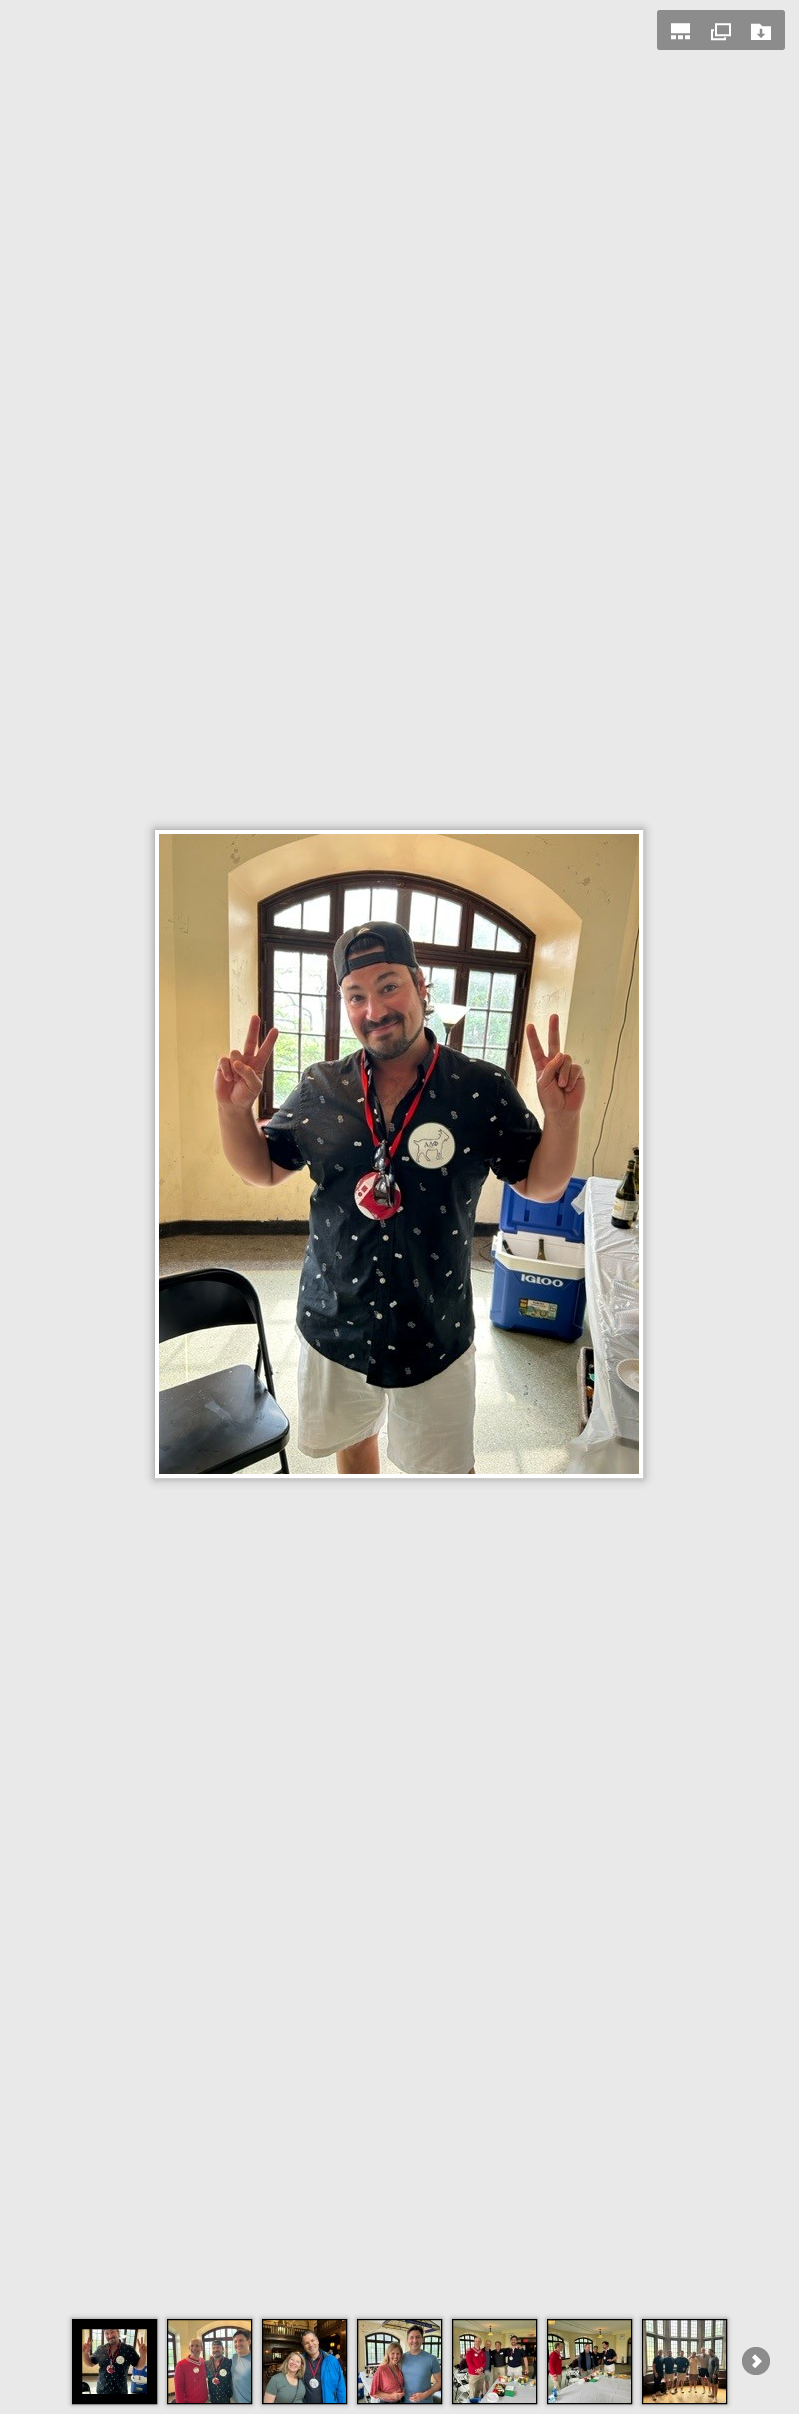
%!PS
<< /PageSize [799 2414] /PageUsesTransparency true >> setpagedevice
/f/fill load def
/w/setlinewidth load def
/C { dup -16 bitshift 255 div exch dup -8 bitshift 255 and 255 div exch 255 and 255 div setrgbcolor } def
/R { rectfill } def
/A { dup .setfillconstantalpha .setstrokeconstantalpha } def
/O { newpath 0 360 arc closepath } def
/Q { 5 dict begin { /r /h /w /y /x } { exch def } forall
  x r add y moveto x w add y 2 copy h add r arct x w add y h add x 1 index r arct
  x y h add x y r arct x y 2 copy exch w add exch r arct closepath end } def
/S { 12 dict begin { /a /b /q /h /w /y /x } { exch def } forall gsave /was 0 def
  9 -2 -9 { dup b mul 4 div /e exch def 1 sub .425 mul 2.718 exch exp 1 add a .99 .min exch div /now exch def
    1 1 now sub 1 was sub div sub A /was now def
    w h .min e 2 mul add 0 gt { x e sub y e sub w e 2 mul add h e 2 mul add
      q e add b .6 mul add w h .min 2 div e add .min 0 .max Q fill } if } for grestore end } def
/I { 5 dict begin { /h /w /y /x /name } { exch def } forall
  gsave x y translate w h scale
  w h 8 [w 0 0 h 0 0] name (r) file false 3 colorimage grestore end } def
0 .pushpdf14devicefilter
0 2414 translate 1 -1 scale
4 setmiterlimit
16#E9E9E9 C
0 0 799 2414 R
16#8C8C8C C
657 10 128 40 3 Q f
(1.rgb) 671 23 19 17 I
(2.rgb) 711 23 20 18 I
(3.rgb) 751 23 20 17 I
16#000000 C
155 830 488 648 0 5 .4 S
16#FFFFFF C
4 w
157 832 484 644 rectstroke
(4.rgb) 159 834 480 640 I
16#000000 C
72 2319 85 85 0 2.5 .4 S
(5.rgb) 82 2329 65 65 I
10 w
77 2324 75 75 rectstroke
167 2319 85 85 0 2.5 .4 S
(6.rgb) 168 2320 83 83 I
1 w
167.5 2319.5 84 84 rectstroke
262 2319 85 85 0 2.5 .4 S
(7.rgb) 263 2320 83 83 I
262.5 2319.5 84 84 rectstroke
357 2319 85 85 0 2.5 .4 S
(8.rgb) 358 2320 83 83 I
357.5 2319.5 84 84 rectstroke
452 2319 85 85 0 2.5 .4 S
(9.rgb) 453 2320 83 83 I
452.5 2319.5 84 84 rectstroke
547 2319 85 85 0 2.5 .4 S
(10.rgb) 548 2320 83 83 I
547.5 2319.5 84 84 rectstroke
642 2319 85 85 0 2.5 .4 S
(11.rgb) 643 2320 83 83 I
642.5 2319.5 84 84 rectstroke
16#8C8C8C C
756 2361 14 O f
(12.rgb) 752 2354 10 15 I
.poppdf14devicefilter showpage
